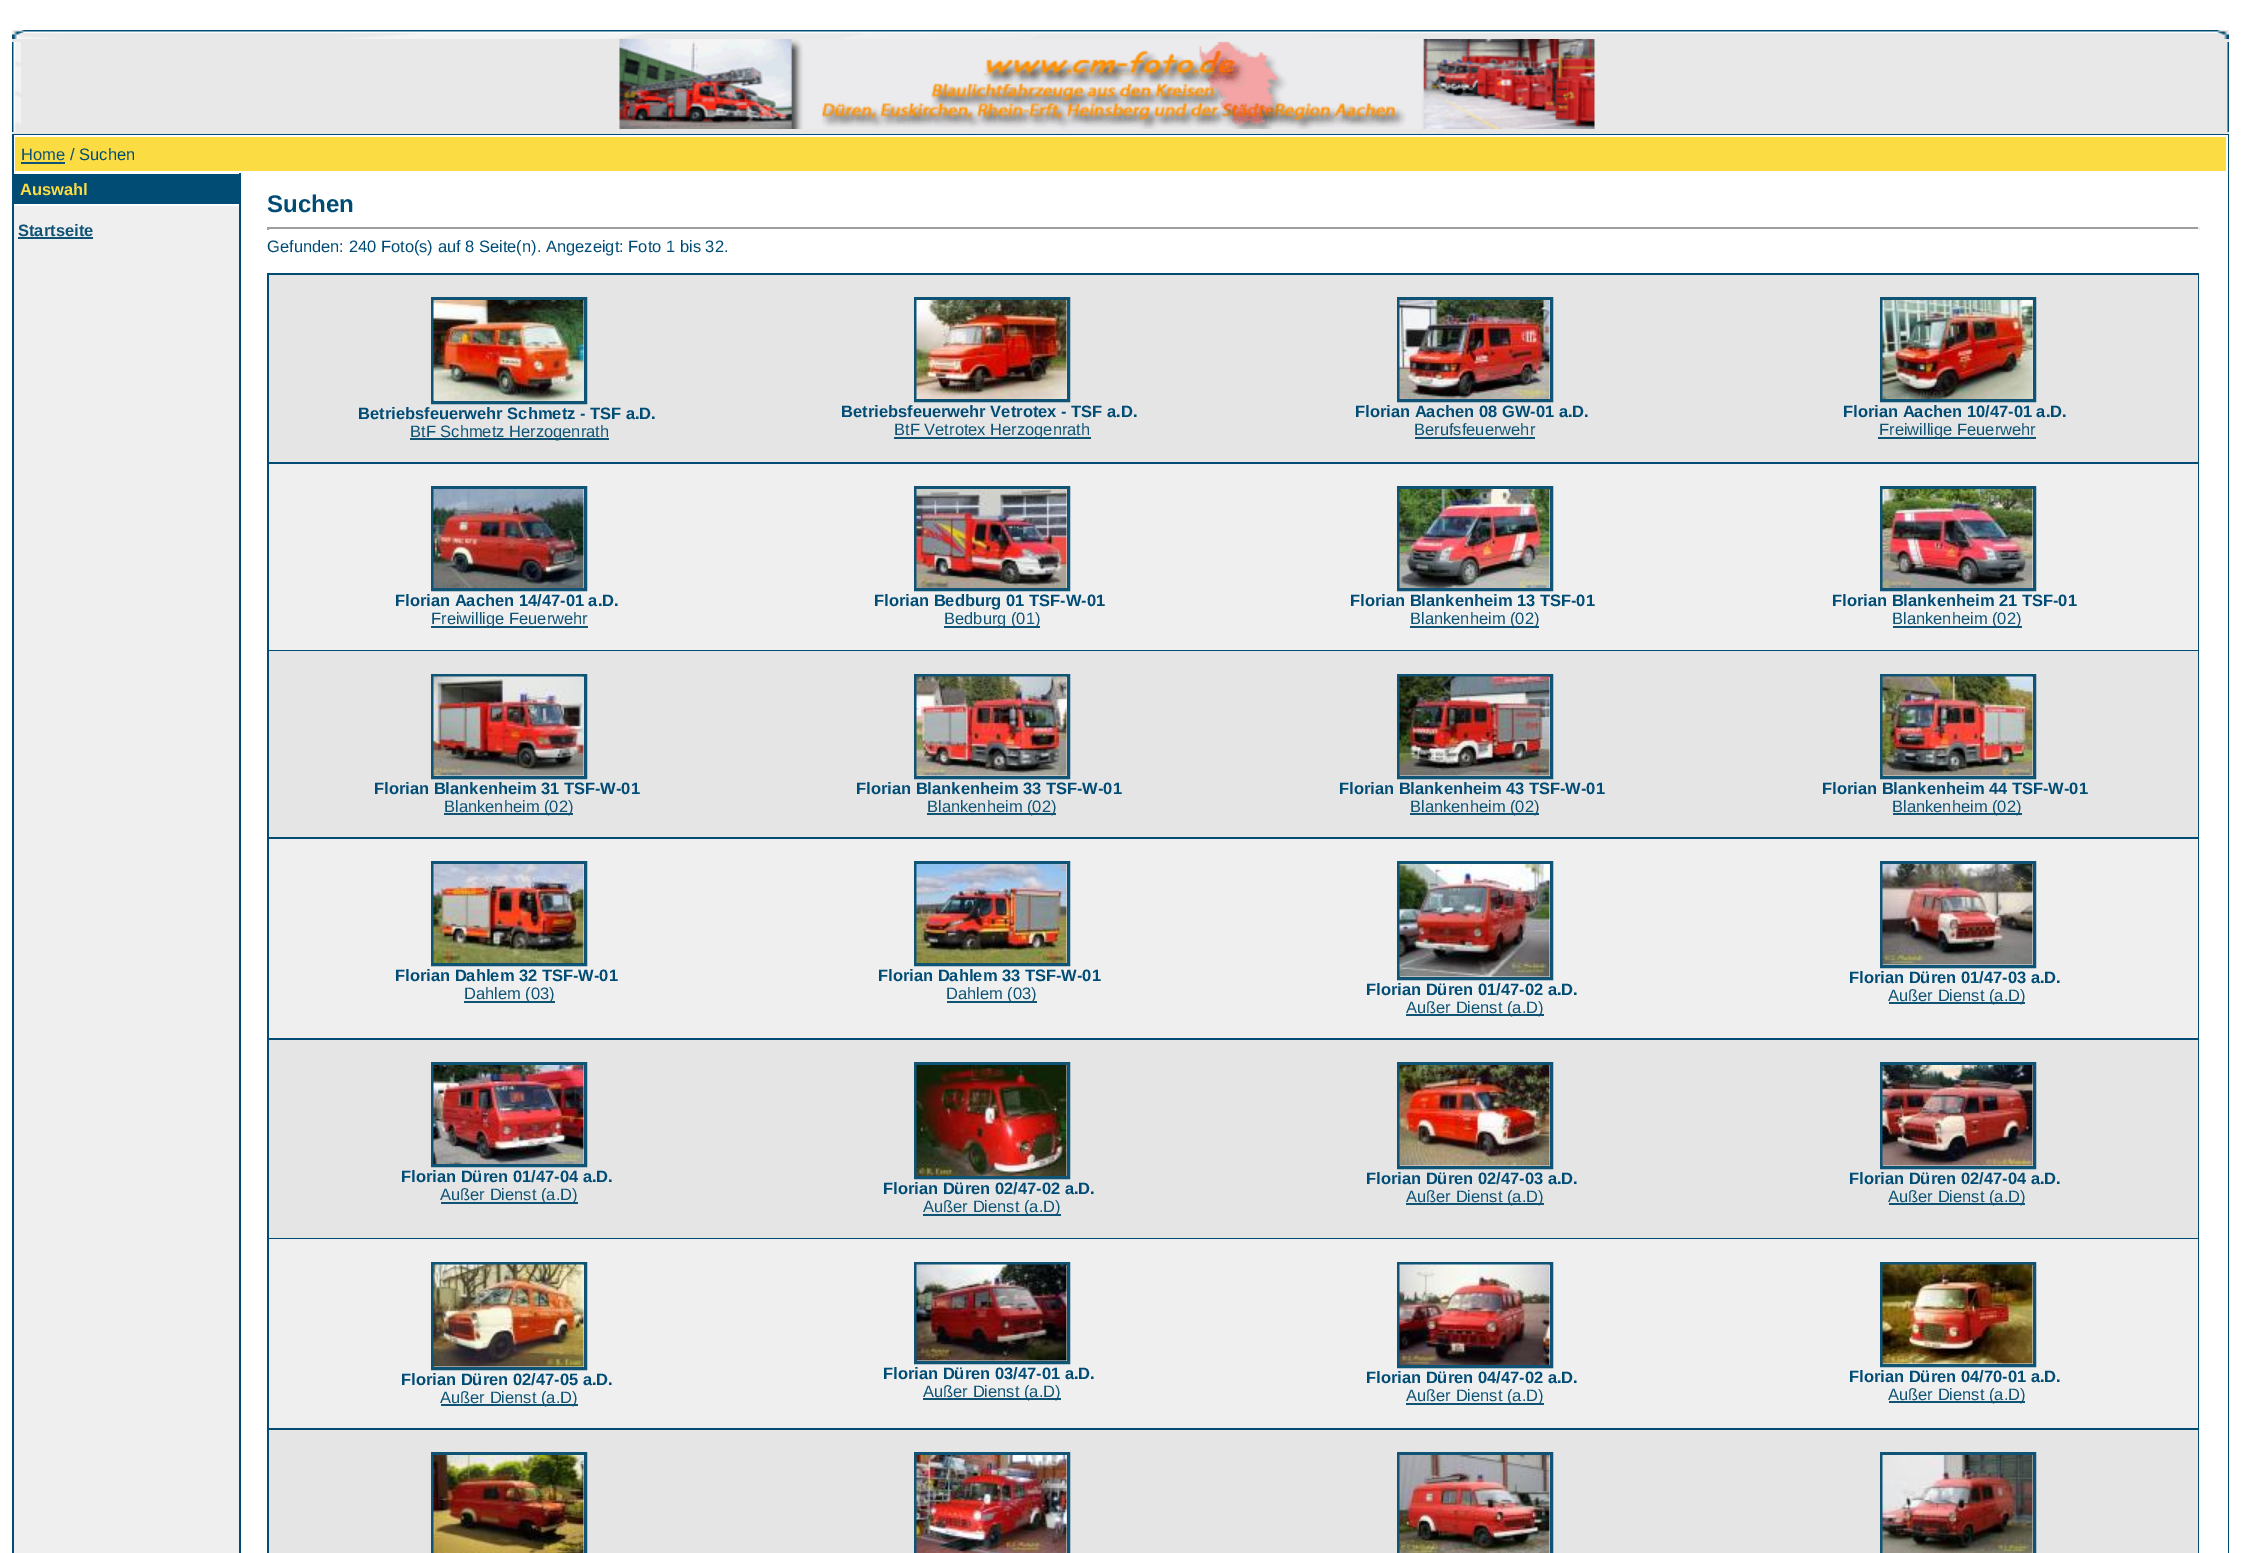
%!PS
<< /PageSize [2241 1553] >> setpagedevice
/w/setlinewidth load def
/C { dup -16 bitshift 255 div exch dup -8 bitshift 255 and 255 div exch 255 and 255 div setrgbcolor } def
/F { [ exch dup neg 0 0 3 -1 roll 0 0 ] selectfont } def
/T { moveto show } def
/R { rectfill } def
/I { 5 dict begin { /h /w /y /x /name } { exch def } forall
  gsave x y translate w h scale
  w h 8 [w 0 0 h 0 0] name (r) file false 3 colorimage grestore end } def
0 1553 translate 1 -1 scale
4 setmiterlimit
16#FFFFFF C
0 0 2241 1553 R
16#E8E8E8 C
12 30 2217 104 R
(1.rgb) 12 30 2217 9 I
(2.rgb) 12 42 9 90 I
(3.rgb) 619 39 976 90 I
(4.rgb) 2227 42 2 90 I
16#004C75 C
12 134 2217 1419 R
16#FFFFFF C
14 135 2214 1418 R
16#FCDC43 C
15 137 2211 34 R
/LiberationSans-Regular 16.5 F
16#0F5475 C
(Home) 21 160 T
21 162 44 2 R
16#004C75 C
(/ Suchen) 70 160 T
16#EFEFEF C
14 206 225 1347 R
16#004C75 C
14 174 225 30 R
/LiberationSans-Bold 16.5 F
16#FCDC43 C
(Auswahl) 20 195 T
16#0F5475 C
(Startseite) 18 236 T
18 237 75 2 R
16#004C75 C
239 173 2 1380 R
/LiberationSans-Bold 24 F
(Suchen) 267 212 T
16#9F9F9F C
267 227 1932 2 R
16#EEEEEE C
2198 227 2 3 R
16#9F9F9F C
267 227 2 3 R
/LiberationSans-Regular 16.5 F
16#004C75 C
(Gefunden: 240 Foto\(s\) auf 8 Seite\(n\). Angezeigt: Foto 1 bis 32.) 267 252 T
267 273 1932 1280 R
16#E5E5E5 C
269 275 1929 187 R
16#0F5475 C
3 w
432.5 298.5 153 104 rectstroke
(5.rgb) 433 300 151 101 I
/LiberationSans-Bold 16.5 F
16#004C75 C
(Betriebsfeuerwehr Schmetz - TSF a.D.) 358 419 T
16#0F5475 C
410 438 199 2 R
/LiberationSans-Regular 16.5 F
(BtF Schmetz Herzogenrath) 410 437 T
915.5 298.5 153 102 rectstroke
(6.rgb) 916 300 151 99 I
/LiberationSans-Bold 16.5 F
16#004C75 C
(Betriebsfeuerwehr Vetrotex - TSF a.D.) 841 417 T
16#0F5475 C
894 437 197 2 R
/LiberationSans-Regular 16.5 F
(BtF Vetrotex Herzogenrath) 894 435 T
1398.5 298.5 153 102 rectstroke
(7.rgb) 1399 300 151 99 I
/LiberationSans-Bold 16.5 F
16#004C75 C
(Florian Aachen 08 GW-01 a.D.) 1355 417 T
/LiberationSans-Regular 16.5 F
16#0F5475 C
(Berufsfeuerwehr) 1414 435 T
1415 437 120 2 R
1881.5 298.5 153 102 rectstroke
(8.rgb) 1882 300 151 99 I
/LiberationSans-Bold 16.5 F
16#004C75 C
(Florian Aachen 10/47-01 a.D.) 1843 417 T
16#0F5475 C
1878 437 158 2 R
/LiberationSans-Regular 16.5 F
(Freiwillige Feuerwehr) 1879 435 T
16#EFEFEF C
269 464 1929 186 R
16#0F5475 C
432.5 487.5 153 102 rectstroke
(9.rgb) 433 489 151 99 I
/LiberationSans-Bold 16.5 F
16#004C75 C
(Florian Aachen 14/47-01 a.D.) 395 606 T
16#0F5475 C
431 626 157 2 R
/LiberationSans-Regular 16.5 F
(Freiwillige Feuerwehr) 431 624 T
915.5 487.5 153 102 rectstroke
(10.rgb) 916 489 151 99 I
/LiberationSans-Bold 16.5 F
16#004C75 C
(Florian Bedburg 01 TSF-W-01) 874 606 T
16#0F5475 C
944 626 96 2 R
/LiberationSans-Regular 16.5 F
(Bedburg \(01\)) 944 624 T
1398.5 487.5 153 102 rectstroke
(11.rgb) 1399 489 151 99 I
/LiberationSans-Bold 16.5 F
16#004C75 C
(Florian Blankenheim 13 TSF-01) 1350 606 T
16#0F5475 C
1410 626 129 2 R
/LiberationSans-Regular 16.5 F
(Blankenheim \(02\)) 1410 624 T
1881.5 487.5 153 102 rectstroke
(12.rgb) 1882 489 151 99 I
/LiberationSans-Bold 16.5 F
16#004C75 C
(Florian Blankenheim 21 TSF-01) 1832 606 T
16#0F5475 C
1893 626 129 2 R
/LiberationSans-Regular 16.5 F
(Blankenheim \(02\)) 1892 624 T
16#E5E5E5 C
269 651 1929 186 R
16#0F5475 C
432.5 675.5 153 102 rectstroke
(13.rgb) 433 676 151 100 I
/LiberationSans-Bold 16.5 F
16#004C75 C
(Florian Blankenheim 31 TSF-W-01) 374 794 T
16#0F5475 C
444 813 129 2 R
/LiberationSans-Regular 16.5 F
(Blankenheim \(02\)) 444 812 T
915.5 675.5 153 102 rectstroke
(14.rgb) 916 676 151 100 I
/LiberationSans-Bold 16.5 F
16#004C75 C
(Florian Blankenheim 33 TSF-W-01) 856 794 T
16#0F5475 C
927 813 129 2 R
/LiberationSans-Regular 16.5 F
(Blankenheim \(02\)) 927 812 T
1398.5 675.5 153 102 rectstroke
(15.rgb) 1399 676 151 100 I
/LiberationSans-Bold 16.5 F
16#004C75 C
(Florian Blankenheim 43 TSF-W-01) 1339 794 T
16#0F5475 C
1410 813 129 2 R
/LiberationSans-Regular 16.5 F
(Blankenheim \(02\)) 1410 812 T
1881.5 675.5 153 102 rectstroke
(16.rgb) 1882 676 151 100 I
/LiberationSans-Bold 16.5 F
16#004C75 C
(Florian Blankenheim 44 TSF-W-01) 1822 794 T
16#0F5475 C
1893 813 129 2 R
/LiberationSans-Regular 16.5 F
(Blankenheim \(02\)) 1892 812 T
16#EFEFEF C
269 839 1929 199 R
16#0F5475 C
432.5 862.5 153 102 rectstroke
(17.rgb) 433 864 151 99 I
/LiberationSans-Bold 16.5 F
16#004C75 C
(Florian Dahlem 32 TSF-W-01) 395 981 T
16#0F5475 C
464 1001 91 2 R
/LiberationSans-Regular 16.5 F
(Dahlem \(03\)) 464 999 T
915.5 862.5 153 102 rectstroke
(18.rgb) 916 864 151 99 I
/LiberationSans-Bold 16.5 F
16#004C75 C
(Florian Dahlem 33 TSF-W-01) 878 981 T
16#0F5475 C
947 1001 90 2 R
/LiberationSans-Regular 16.5 F
(Dahlem \(03\)) 946 999 T
1398.5 862.5 153 116 rectstroke
(19.rgb) 1399 864 151 113 I
/LiberationSans-Bold 16.5 F
16#004C75 C
(Florian Düren 01/47-02 a.D.) 1366 995 T
16#0F5475 C
1406 1014 138 2 R
/LiberationSans-Regular 16.5 F
(Außer Dienst \(a.D\)) 1406 1013 T
1881.5 862.5 153 104 rectstroke
(20.rgb) 1882 864 151 101 I
/LiberationSans-Bold 16.5 F
16#004C75 C
(Florian Düren 01/47-03 a.D.) 1849 983 T
16#0F5475 C
1889 1002 136 2 R
/LiberationSans-Regular 16.5 F
(Außer Dienst \(a.D\)) 1888 1001 T
16#E5E5E5 C
269 1040 1929 198 R
16#0F5475 C
432.5 1063.5 153 102 rectstroke
(21.rgb) 433 1065 151 99 I
/LiberationSans-Bold 16.5 F
16#004C75 C
(Florian Düren 01/47-04 a.D.) 401 1182 T
16#0F5475 C
441 1202 137 2 R
/LiberationSans-Regular 16.5 F
(Außer Dienst \(a.D\)) 440 1200 T
915.5 1063.5 153 114 rectstroke
(22.rgb) 916 1065 151 111 I
/LiberationSans-Bold 16.5 F
16#004C75 C
(Florian Düren 02/47-02 a.D.) 883 1194 T
16#0F5475 C
923 1214 138 2 R
/LiberationSans-Regular 16.5 F
(Außer Dienst \(a.D\)) 923 1212 T
1398.5 1063.5 153 104 rectstroke
(23.rgb) 1399 1065 151 101 I
/LiberationSans-Bold 16.5 F
16#004C75 C
(Florian Düren 02/47-03 a.D.) 1366 1184 T
16#0F5475 C
1406 1203 138 2 R
/LiberationSans-Regular 16.5 F
(Außer Dienst \(a.D\)) 1406 1202 T
1881.5 1063.5 153 104 rectstroke
(24.rgb) 1882 1065 151 101 I
/LiberationSans-Bold 16.5 F
16#004C75 C
(Florian Düren 02/47-04 a.D.) 1849 1184 T
16#0F5475 C
1889 1203 136 2 R
/LiberationSans-Regular 16.5 F
(Außer Dienst \(a.D\)) 1888 1202 T
16#EFEFEF C
269 1239 1929 189 R
16#0F5475 C
432.5 1263.5 153 105 rectstroke
(25.rgb) 433 1264 151 103 I
/LiberationSans-Bold 16.5 F
16#004C75 C
(Florian Düren 02/47-05 a.D.) 401 1385 T
16#0F5475 C
441 1404 137 2 R
/LiberationSans-Regular 16.5 F
(Außer Dienst \(a.D\)) 440 1403 T
915.5 1263.5 153 99 rectstroke
(26.rgb) 916 1264 151 97 I
/LiberationSans-Bold 16.5 F
16#004C75 C
(Florian Düren 03/47-01 a.D.) 883 1379 T
16#0F5475 C
923 1398 138 2 R
/LiberationSans-Regular 16.5 F
(Außer Dienst \(a.D\)) 923 1397 T
1398.5 1263.5 153 103 rectstroke
(27.rgb) 1399 1264 151 101 I
/LiberationSans-Bold 16.5 F
16#004C75 C
(Florian Düren 04/47-02 a.D.) 1366 1383 T
16#0F5475 C
1406 1403 138 2 R
/LiberationSans-Regular 16.5 F
(Außer Dienst \(a.D\)) 1406 1401 T
1881.5 1263.5 153 102 rectstroke
(28.rgb) 1882 1264 151 100 I
/LiberationSans-Bold 16.5 F
16#004C75 C
(Florian Düren 04/70-01 a.D.) 1849 1382 T
16#0F5475 C
1889 1401 136 2 R
/LiberationSans-Regular 16.5 F
(Außer Dienst \(a.D\)) 1888 1400 T
16#E5E5E5 C
269 1430 1929 123 R
16#0F5475 C
432.5 1453.5 153 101 rectstroke
(29.rgb) 433 1455 151 98 I
915.5 1453.5 153 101 rectstroke
(30.rgb) 916 1455 151 98 I
1398.5 1453.5 153 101 rectstroke
(31.rgb) 1399 1455 151 98 I
1881.5 1453.5 153 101 rectstroke
(32.rgb) 1882 1455 151 98 I
showpage
